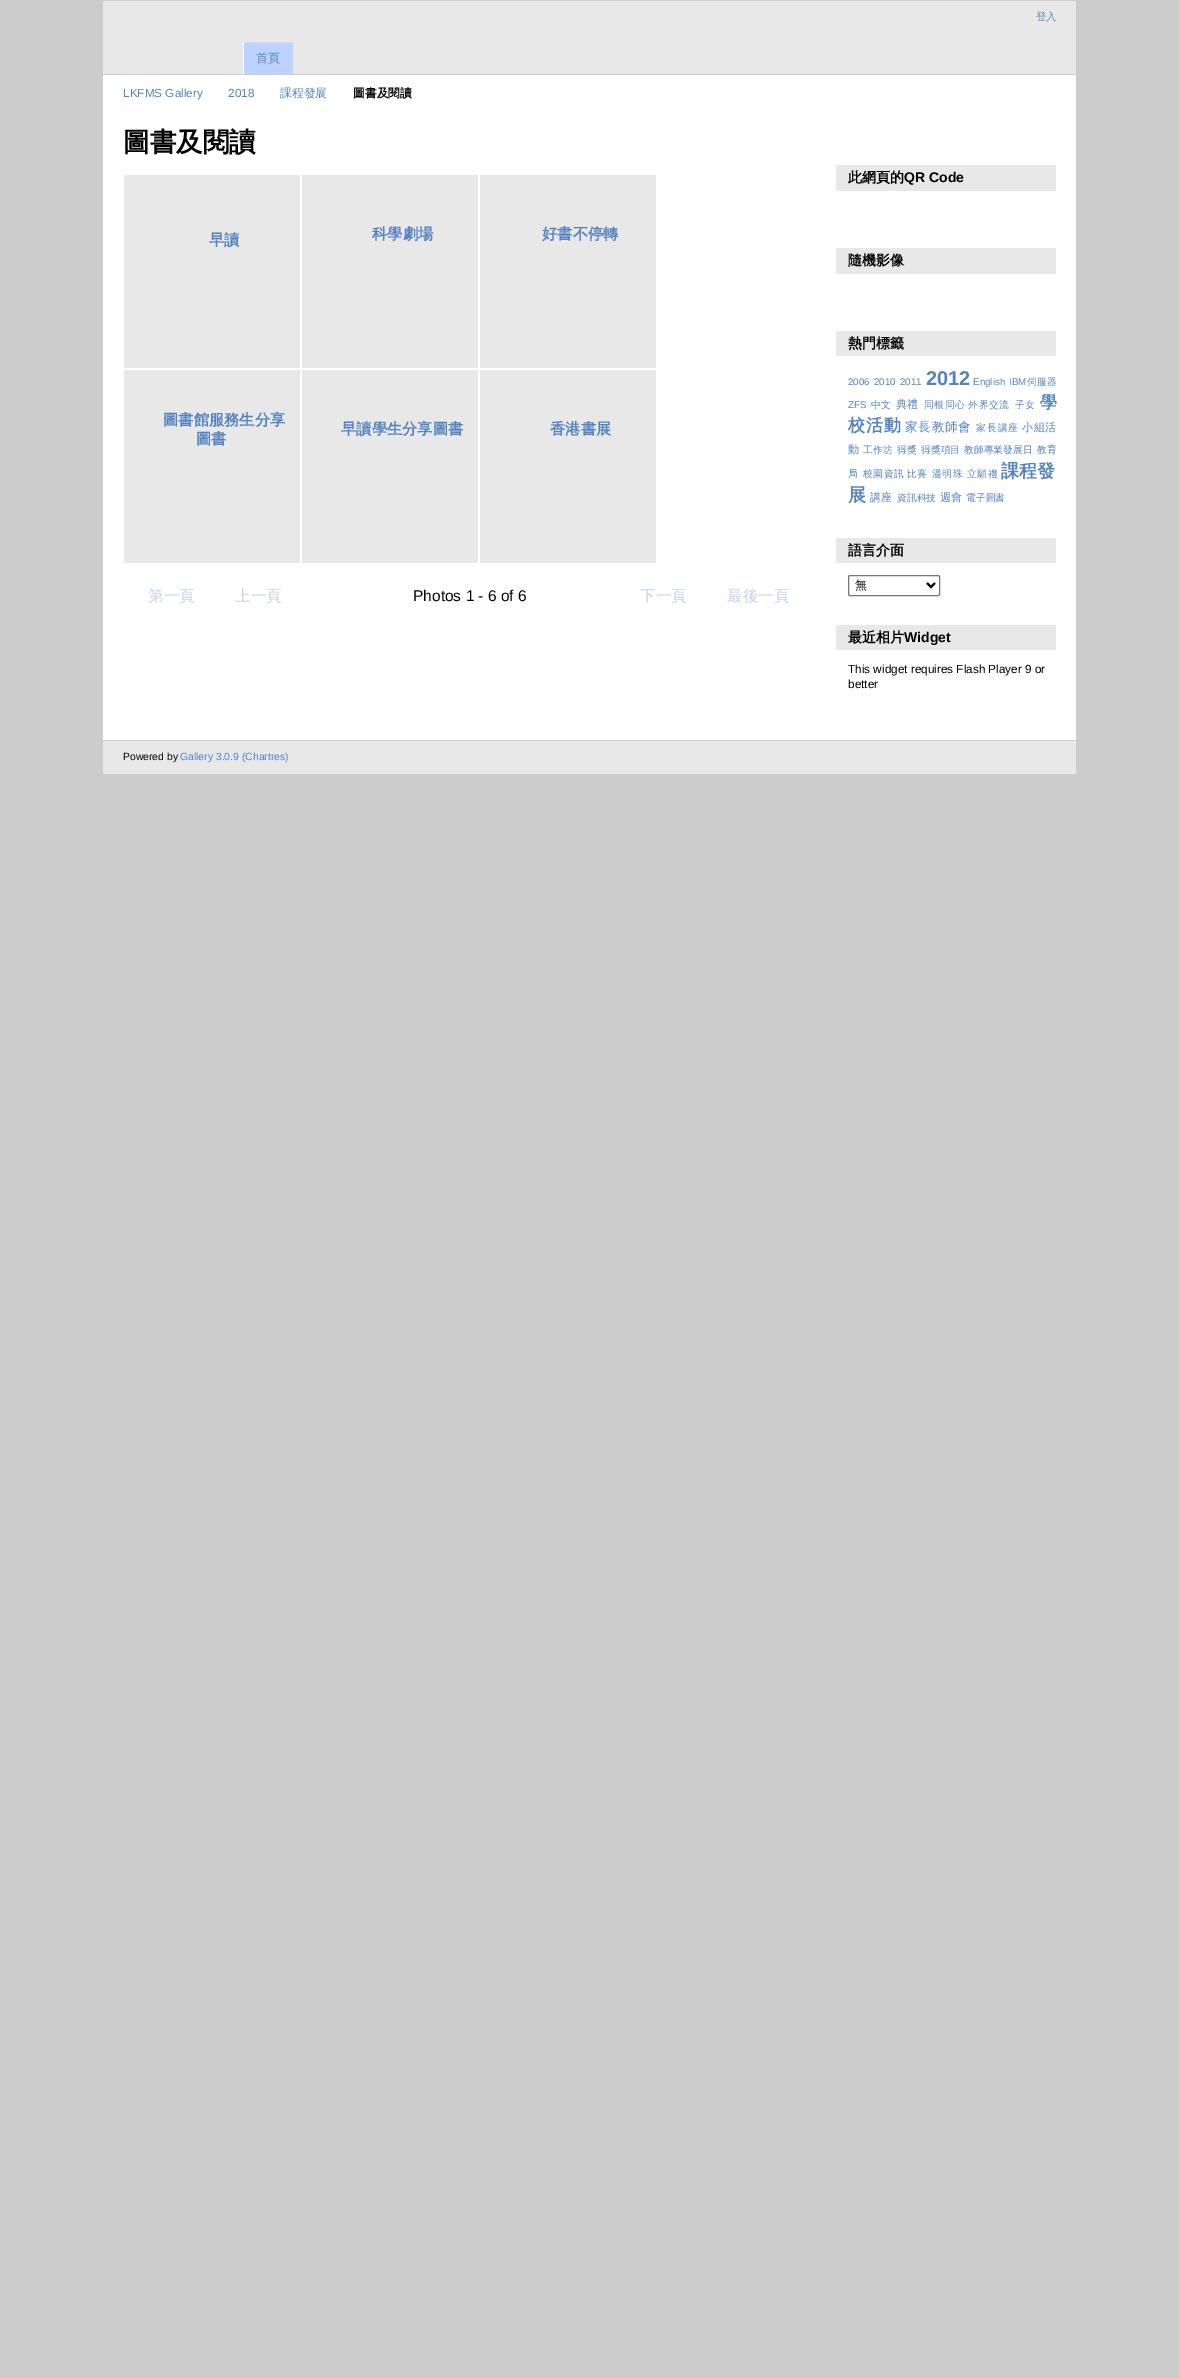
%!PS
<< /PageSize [1179 2378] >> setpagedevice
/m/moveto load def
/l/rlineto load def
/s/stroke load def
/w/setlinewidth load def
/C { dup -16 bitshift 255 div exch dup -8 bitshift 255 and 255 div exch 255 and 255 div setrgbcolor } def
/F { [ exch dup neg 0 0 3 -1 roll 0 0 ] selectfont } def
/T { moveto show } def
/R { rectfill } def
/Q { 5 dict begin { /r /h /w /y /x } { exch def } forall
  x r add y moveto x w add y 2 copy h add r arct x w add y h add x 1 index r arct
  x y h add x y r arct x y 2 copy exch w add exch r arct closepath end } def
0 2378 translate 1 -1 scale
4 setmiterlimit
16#CCCCCC C
0 0 1179 2378 R
16#FFFFFF C
103 75 973 665 R
16#E8E8E8 C
103 1 973 73 R
/WenQuanYiZenHei-Medium 10.4 F
16#5382BF C
(登入) 1036 20 T
16#BDD2FF C
244 43 49 31 R
16#CFDEFF C
243 42 50 1 R
16#FFFFFF C
243 42 1 32 R
/WenQuanYiZenHei-Medium 12 F
16#5382BF C
(首頁) 256 62 T
/LiberationSans-Regular 11.75 F
(LKFMS Gallery) 123 97 T
(2018) 228 97 T
/WenQuanYiZenHei-Medium 11.75 F
(課程發展) 280 97 T
/WenQuanYiZenHei-Bold 11.75 F
16#000000 C
(圖書及閱讀) 353 97 T
/WenQuanYiZenHei-Bold 26.5 F
(圖書及閱讀) 123 151 T
16#E8E8E8 C
124 175 176 193 R
/WenQuanYiZenHei-Bold 15.25 F
16#5382BF C
(早讀) 209 245 T
16#E8E8E8 C
302 175 176 193 R
16#5382BF C
(科學劇場) 372 239 T
16#E8E8E8 C
480 175 176 193 R
16#5382BF C
(好書不停轉) 542 239 T
16#E8E8E8 C
124 370 176 193 R
16#5382BF C
(圖書館服務生分享) 163 425 T
(圖書) 196 444 T
16#E8E8E8 C
302 370 176 193 R
16#5382BF C
(早讀學生分享圖書) 341 434 T
16#E8E8E8 C
480 370 176 193 R
16#5382BF C
(香港書展) 550 434 T
/WenQuanYiZenHei-Medium 15.5 F
16#C3D3E9 C
(第一頁) 148 601 T
(上一頁) 235 601 T
/LiberationSans-Regular 15.5 F
16#000000 C
(Photos 1 - 6 of 6) 413 601 T
/WenQuanYiZenHei-Medium 15.5 F
16#C3D3E9 C
(下一頁) 640 601 T
(最後一頁) 727 601 T
16#E8E8E8 C
836 165 220 26 R
/WenQuanYiZenHei-Bold 14 F
16#000000 C
(此網頁的) 848 182 T
/LiberationSans-Bold 14 F
(QR Code) 904 182 T
16#E8E8E8 C
836 248 220 26 R
/WenQuanYiZenHei-Bold 14 F
16#000000 C
(隨機影像) 848 265 T
16#E8E8E8 C
836 331 220 25 R
16#000000 C
(熱門標籤) 848 348 T
/LiberationSans-Regular 9.75 F
16#5382BF C
(2006) 848 385 T
(2010) 874 385 T
(2011) 900 385 T
/LiberationSans-Bold 20 F
(2012) 926 385 T
/LiberationSans-Regular 9.75 F
(English) 973 385 T
(IBM) 1009 385 T
/WenQuanYiZenHei-Medium 9.75 F
(伺服器) 1027 385 T
/LiberationSans-Regular 9.75 F
(ZFS) 848 408 T
/WenQuanYiZenHei-Medium 9.75 F
(中文) 871 408 T
/WenQuanYiZenHei-Medium 11 F
(典禮) 896 408 T
/WenQuanYiZenHei-Medium 9.75 F
924 408 m .5 0 (同根同心 外界交流) ashow
(子女) 1015 408 T
/WenQuanYiZenHei-Bold 17 F
(學) 1040 408 T
848 431 m 1 0 (校活動) ashow
/WenQuanYiZenHei-Medium 12.5 F
905 431 m .75 0 (家長教師會) ashow
/WenQuanYiZenHei-Medium 9.75 F
976 431 m 1 0 (家長講座) ashow
/WenQuanYiZenHei-Medium 11 F
1022 431 m .5 0 (小組活) ashow
(動) 848 453 T
/WenQuanYiZenHei-Medium 9.75 F
(工作坊) 863 453 T
(得獎) 897 453 T
(得獎項目) 921 453 T
(教師專業發展日) 964 453 T
(教育) 1037 453 T
(局) 848 477 T
863 477 m .5 0 (校園資訊) ashow
(比賽) 907 477 T
932 477 m .5 0 (潘明珠) ashow
967 477 m .5 0 (立願禮) ashow
/WenQuanYiZenHei-Bold 18 F
(課程發) 1001 477 T
(展) 848 501 T
/WenQuanYiZenHei-Medium 11 F
(講座) 870 501 T
/WenQuanYiZenHei-Medium 9.75 F
(資訊科技) 897 501 T
/WenQuanYiZenHei-Medium 11 F
(週會) 940 501 T
/WenQuanYiZenHei-Medium 9.75 F
(電子圖書) 966 501 T
16#E8E8E8 C
836 538 220 25 R
/WenQuanYiZenHei-Bold 14 F
16#000000 C
(語言介面) 848 555 T
16#767676 C
848.5 575.5 91 20 1.5 Q s
16#000000 C
2 w
927 583 m 4 4 l 4 -4 l s
/WenQuanYiZenHei-Medium 12 F
(無) 855 589 T
16#E8E8E8 C
836 625 220 25 R
/WenQuanYiZenHei-Bold 14 F
16#000000 C
(最近相片) 848 642 T
/LiberationSans-Bold 14 F
(Widget) 904 642 T
/LiberationSans-Regular 11.75 F
(This widget requires Flash Player 9 or) 848 673 T
(better) 848 688 T
16#E8E8E8 C
103 741 973 33 R
/LiberationSans-Regular 10.4 F
16#000000 C
(Powered by) 123 760 T
16#5382BF C
(Gallery 3.0.9 \(Chartres\)) 180 760 T
showpage
